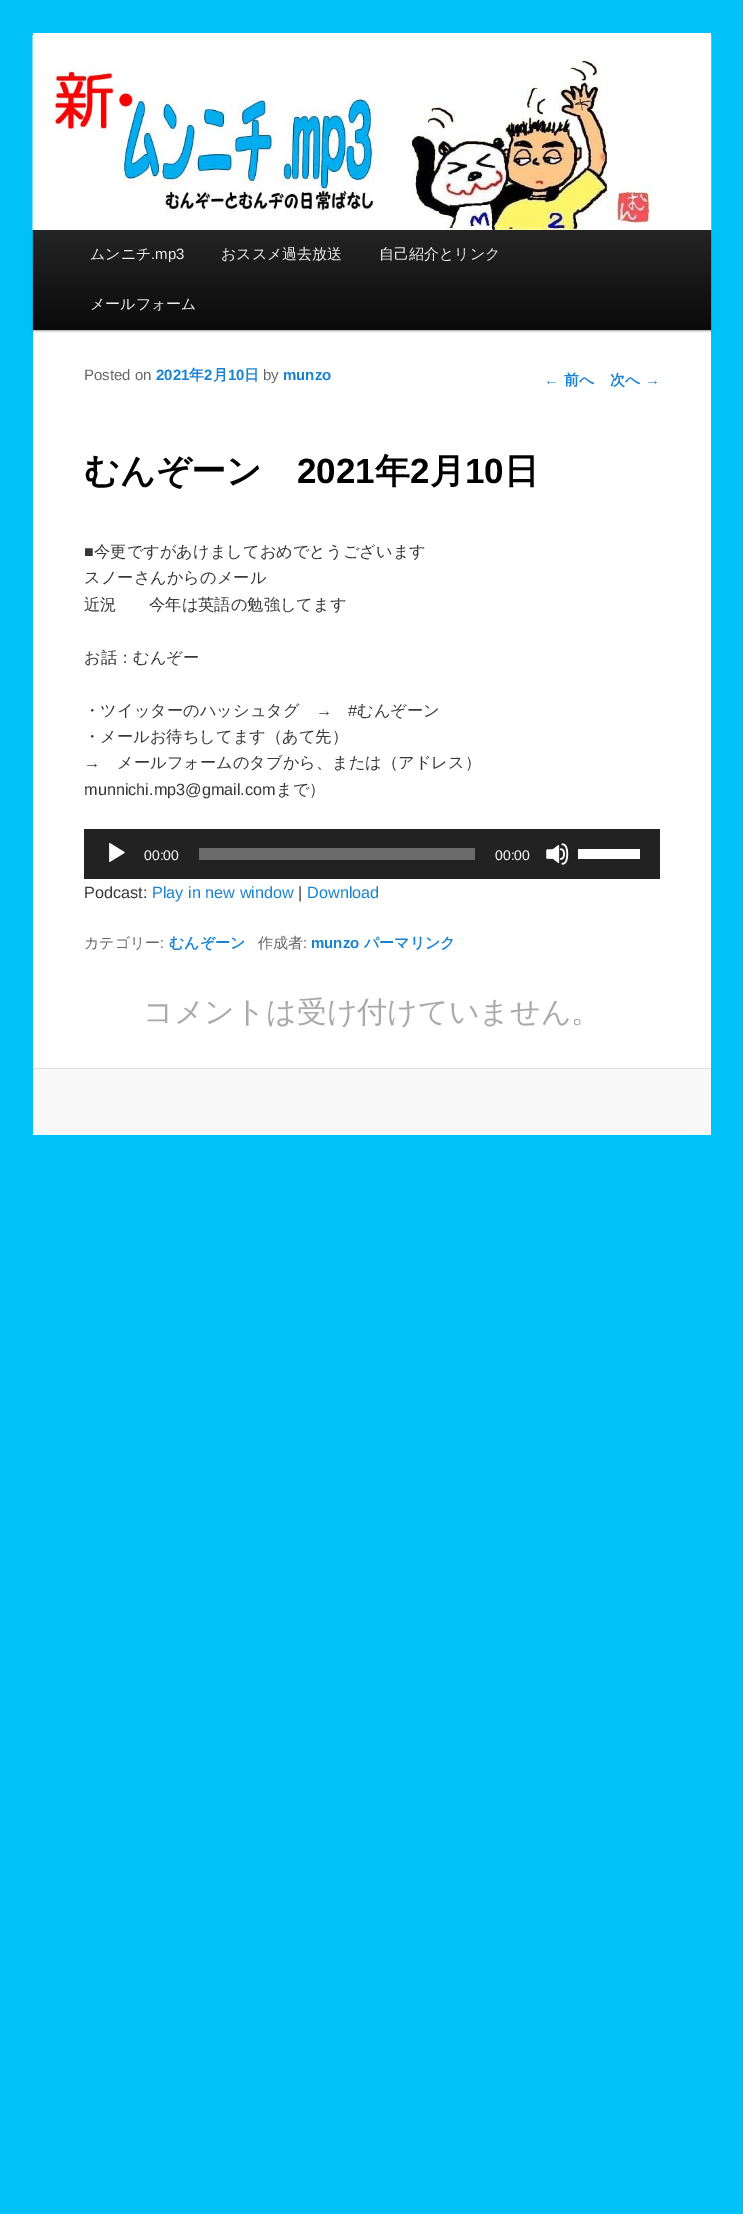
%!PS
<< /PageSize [743 2214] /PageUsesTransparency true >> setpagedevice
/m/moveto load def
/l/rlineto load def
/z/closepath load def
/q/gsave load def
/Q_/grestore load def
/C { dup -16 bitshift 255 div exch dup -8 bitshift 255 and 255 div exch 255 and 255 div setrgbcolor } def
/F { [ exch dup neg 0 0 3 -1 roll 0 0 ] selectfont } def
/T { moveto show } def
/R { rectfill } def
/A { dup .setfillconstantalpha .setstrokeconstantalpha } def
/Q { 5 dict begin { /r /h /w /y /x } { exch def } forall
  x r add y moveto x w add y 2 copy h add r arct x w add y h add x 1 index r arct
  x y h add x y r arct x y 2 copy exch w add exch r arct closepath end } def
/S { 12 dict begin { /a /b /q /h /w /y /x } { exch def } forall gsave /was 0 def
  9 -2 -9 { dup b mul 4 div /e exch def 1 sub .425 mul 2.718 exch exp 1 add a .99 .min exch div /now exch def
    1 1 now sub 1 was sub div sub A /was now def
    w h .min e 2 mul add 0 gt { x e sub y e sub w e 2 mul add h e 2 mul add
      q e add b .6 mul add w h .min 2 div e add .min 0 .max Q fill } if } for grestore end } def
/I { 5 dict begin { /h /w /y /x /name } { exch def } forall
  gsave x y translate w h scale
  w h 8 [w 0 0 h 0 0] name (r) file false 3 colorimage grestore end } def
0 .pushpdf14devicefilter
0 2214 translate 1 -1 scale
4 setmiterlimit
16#00C2F9 C
0 0 743 2214 R
16#FFFFFF C
33 33 678 1035 R
16#000000 C
33 231 678 100 0 1 .4 S
(1.rgb) 32 35 680 195 I
q 33 230 m 678 0 l 0 100 l -678 0 l z clip newpath
<< /ShadingType 2 /ColorSpace /DeviceRGB /Coords [372 230 372 330] /Extend [true true] /Function << /FunctionType 2 /Domain [0 1] /C0 [.145 .145 .145] /C1 [.039 .039 .039] /N 1 >> >> shfill Q_
/WenQuanYiZenHei-Medium 15 F
16#EEEEEE C
(ムンニチ) 90 259 T
/LiberationSans-Regular 15 F
(.mp3) 151 259 T
/WenQuanYiZenHei-Medium 15 F
(おススメ過去放送) 221 259 T
(自己紹介とリンク) 379 259 T
(メールフォーム) 90 309 T
/LiberationSans-Regular 15 F
16#666666 C
(Posted on) 84 380 T
/LiberationSans-Bold 15 F
16#1982D1 C
(2021) 156 380 T
/WenQuanYiZenHei-Bold 15 F
(年) 189 380 T
/LiberationSans-Bold 15 F
(2) 204 380 T
/WenQuanYiZenHei-Bold 15 F
(月) 213 380 T
/LiberationSans-Bold 15 F
(10) 228 380 T
/WenQuanYiZenHei-Bold 15 F
(日) 244 380 T
/LiberationSans-Regular 15 F
16#666666 C
(by) 263 380 T
/LiberationSans-Bold 15 F
16#1982D1 C
(munzo) 283 380 T
/WenQuanYiZenHei-Bold 35 F
16#000000 C
(むんぞーン) 84 483 T
/LiberationSans-Bold 35 F
(2021) 297 483 T
/WenQuanYiZenHei-Bold 35 F
(年) 375 483 T
/LiberationSans-Bold 35 F
(2) 410 483 T
/WenQuanYiZenHei-Bold 35 F
(月) 430 483 T
/LiberationSans-Bold 35 F
(10) 465 483 T
/WenQuanYiZenHei-Bold 35 F
(日) 504 483 T
/LiberationSans-Regular 16.25 F
16#373737 C
(■) 84 557 T
/WenQuanYiZenHei-Medium 16.25 F
(今更ですがあけましておめでとうございます) 94 557 T
(スノーさんからのメール) 84 583 T
(近況　　今年は英語の勉強してます) 84 610 T
(お話：むんぞー) 84 663 T
(・ツイッターのハッシュタグ) 84 716 T
/LiberationSans-Regular 16.25 F
(→) 316 716 T
(#) 348 716 T
/WenQuanYiZenHei-Medium 16.25 F
(むんぞーン) 357 716 T
(・メールお待ちしてます（あて先）) 84 742 T
/LiberationSans-Regular 16.25 F
(→) 84 768 T
/WenQuanYiZenHei-Medium 16.25 F
(メールフォームのタブから、または（アドレス）) 117 768 T
/LiberationSans-Regular 16.25 F
(munnichi.mp3@gmail.com) 84 795 T
/WenQuanYiZenHei-Medium 16.25 F
(まで）) 276 795 T
16#222222 C
84 829 576 50 R
(2.rgb) 109 843 16 19 I
/LiberationSans-Regular 14 F
16#FFFFFF C
(00:00) 144 860 T
16#6B6B6B C
199 848 276 12 R
16#FFFFFF C
(00:00) 495 860 T
(3.rgb) 546 843 23 22 I
578 849 62 10 R
/LiberationSans-Regular 16.25 F
16#373737 C
(Podcast:) 84 898 T
16#1982D1 C
(Play in new window) 152 898 T
16#373737 C
(|) 298 898 T
16#1982D1 C
(Download) 307 898 T
/WenQuanYiZenHei-Medium 15 F
16#666666 C
(カテゴリー) 84 948 T
/LiberationSans-Regular 15 F
(:) 160 948 T
/WenQuanYiZenHei-Bold 15 F
16#1982D1 C
(むんぞーン) 169 948 T
/WenQuanYiZenHei-Medium 15 F
16#666666 C
(作成者) 258 948 T
/LiberationSans-Regular 15 F
(:) 303 948 T
/LiberationSans-Bold 15 F
16#1982D1 C
(munzo) 311 948 T
/WenQuanYiZenHei-Bold 15 F
(パーマリンク) 364 948 T
/LiberationSans-Regular 15 F
(←) 544 385 T
/WenQuanYiZenHei-Bold 15 F
(前へ) 564 385 T
(次へ) 610 385 T
/LiberationSans-Regular 15 F
(→) 645 385 T
/WenQuanYiZenHei-Medium 30 F
16#AAAAAA C
(コメントは受け付けていません。) 143 1022 T
16#F9F9F9 C
33 1069 678 66 R
16#DDDDDD C
33 1068 678 1 R
.poppdf14devicefilter showpage
